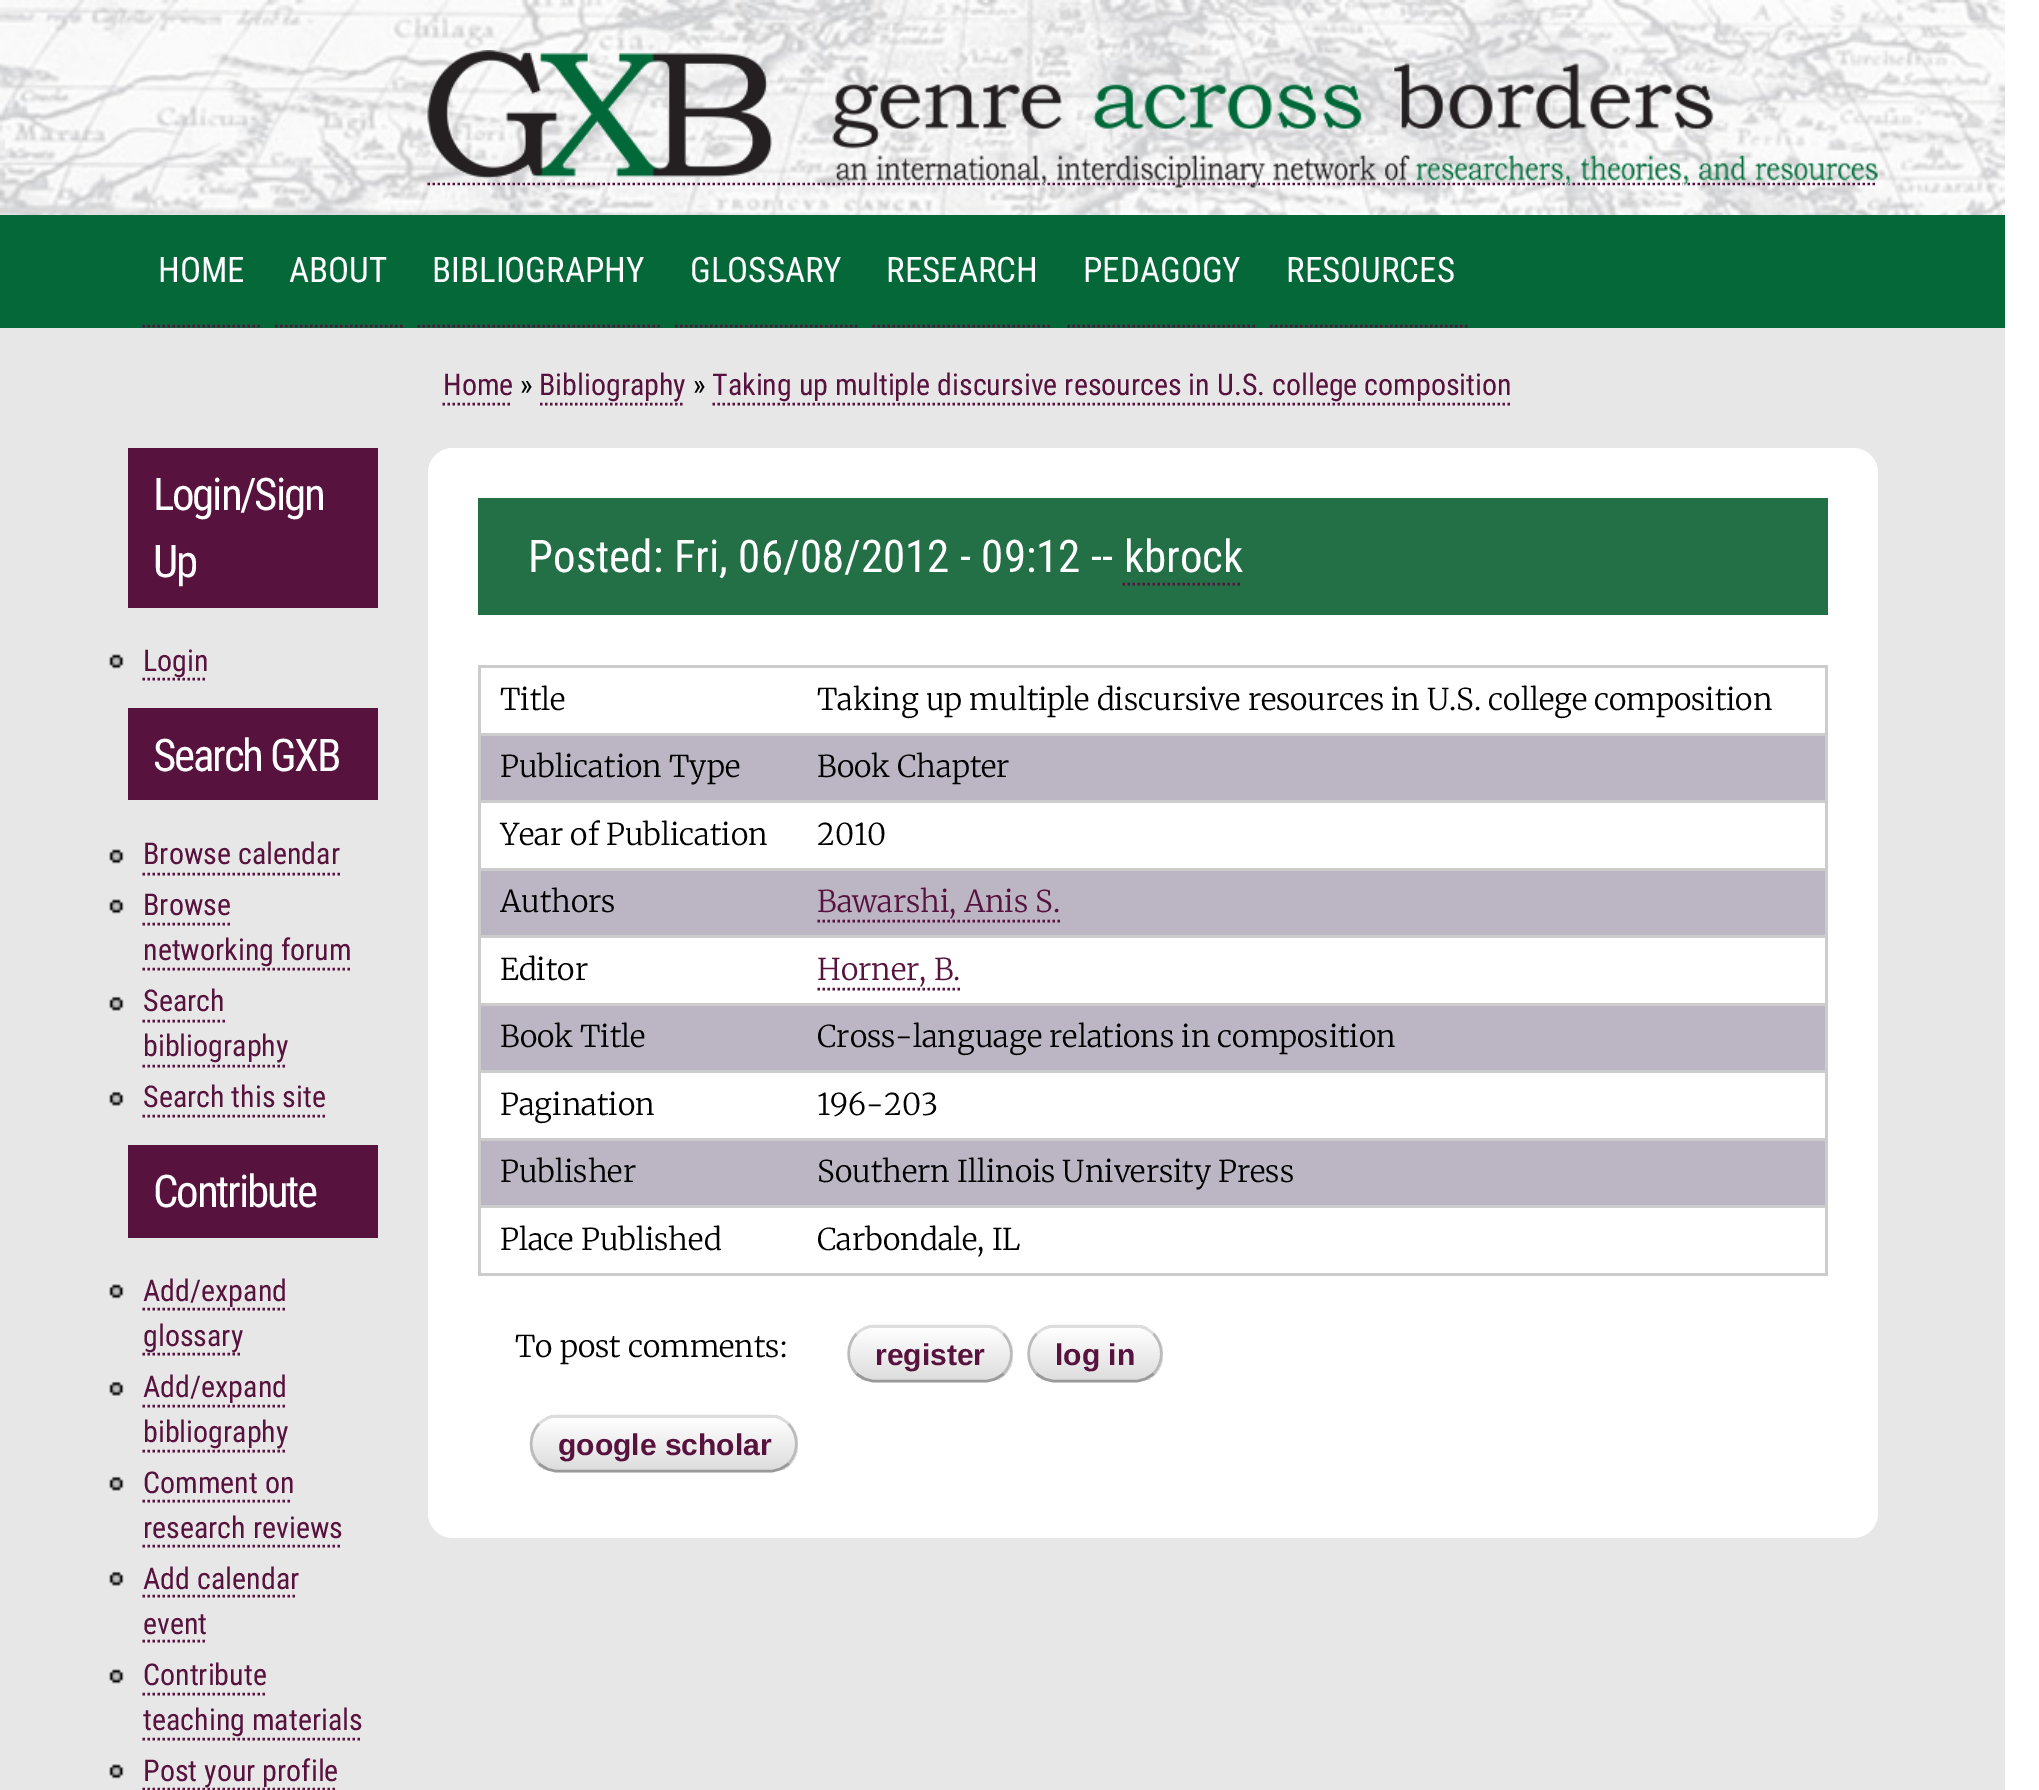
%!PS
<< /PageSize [2039 1790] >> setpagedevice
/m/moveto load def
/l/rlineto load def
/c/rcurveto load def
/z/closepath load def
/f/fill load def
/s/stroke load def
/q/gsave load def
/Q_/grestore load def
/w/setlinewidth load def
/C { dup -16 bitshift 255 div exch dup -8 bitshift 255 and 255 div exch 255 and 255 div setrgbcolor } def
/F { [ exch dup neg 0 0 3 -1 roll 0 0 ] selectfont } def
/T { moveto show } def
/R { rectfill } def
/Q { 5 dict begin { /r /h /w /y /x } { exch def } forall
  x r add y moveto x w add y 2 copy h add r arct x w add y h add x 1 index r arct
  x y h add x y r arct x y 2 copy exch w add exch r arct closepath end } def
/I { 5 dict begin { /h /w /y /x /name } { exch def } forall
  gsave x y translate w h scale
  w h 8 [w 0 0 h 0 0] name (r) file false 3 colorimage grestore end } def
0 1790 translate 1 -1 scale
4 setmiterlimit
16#FFFFFF C
0 0 2039 1790 R
16#E7E7E7 C
0 328 2005 1462 R
(1.rgb) 0 0 2005 215 I
16#58123E C
2.5 w
[2.5 2.5] 0 setdash
427.5 184 m 1450 0 l s
(2.rgb) 427 50 1451 138 I
16#056839 C
0 215 2005 113 R
16#58123E C
142.5 326 m 117.5 0 l s
/RobotoCondensed-Regular 35 F
16#FFFFFF C
(HOME) 158 282 T
16#58123E C
275 326 m 127.5 0 l s
16#FFFFFF C
(ABOUT) 289 282 T
16#58123E C
417.5 326 m 242.5 0 l s
16#FFFFFF C
(BIBLIOGRAPHY) 432 282 T
16#58123E C
675 326 m 182.5 0 l s
16#FFFFFF C
(GLOSSARY) 690 282 T
16#58123E C
872.5 326 m 180 0 l s
16#FFFFFF C
(RESEARCH) 886 282 T
16#58123E C
1067.5 326 m 187.5 0 l s
16#FFFFFF C
(PEDAGOGY) 1083 282 T
16#58123E C
1270 326 m 200 0 l s
16#FFFFFF C
(RESOURCES) 1286 282 T
/RobotoCondensed-Regular 30 F
16#58123E C
(Home) 443 395 T
442.5 404 m 70 0 l s
16#000000 C
(») 520 395 T
16#58123E C
(Bibliography) 539 395 T
540 404 m 145 0 l s
16#000000 C
(») 693 395 T
16#58123E C
(Taking up multiple discursive resources in U.S. college composition) 712 395 T
712.5 404 m 800 0 l s
128 448 250 160 R
/RobotoCondensed-Regular 45 F
16#FFFFFF C
153 510 m -2.25 0 (Login/Sign) ashow
153 577 m -2.25 0 (Up) ashow
(3.rgb) 109 654 15 15 I
16#58123E C
142.5 679 m 65 0 l s
/RobotoCondensed-Regular 30 F
(Login) 143 671 T
128 708 250 92 R
/RobotoCondensed-Regular 45 F
16#FFFFFF C
153 771 m -2.25 0 (Search GXB) ashow
(3.rgb) 109 849 15 15 I
/RobotoCondensed-Regular 30 F
16#58123E C
(Browse calendar) 143 864 T
142.5 874 m 197.5 0 l s
(3.rgb) 109 899 15 15 I
(Browse) 143 915 T
142.5 924 m 87.5 0 l s
(networking forum) 143 960 T
142.5 969 m 207.5 0 l s
(4.rgb) 109 996 15 15 I
(Search) 143 1011 T
142.5 1021 m 82.5 0 l s
(bibliography) 143 1056 T
142.5 1066 m 145 0 l s
(4.rgb) 109 1091 15 15 I
(Search this site) 143 1107 T
142.5 1116 m 182.5 0 l s
128 1145 250 93 R
/RobotoCondensed-Regular 45 F
16#FFFFFF C
153 1207 m -2.25 0 (Contribute) ashow
(3.rgb) 109 1284 15 15 I
16#58123E C
142.5 1309 m 145 0 l s
/RobotoCondensed-Regular 30 F
(Add/expand) 143 1301 T
142.5 1354 m 100 0 l s
(glossary) 143 1346 T
(4.rgb) 109 1381 15 15 I
(Add/expand) 143 1397 T
142.5 1406 m 145 0 l s
(bibliography) 143 1442 T
142.5 1451 m 145 0 l s
(4.rgb) 109 1476 15 15 I
(Comment on) 143 1493 T
142.5 1501 m 150 0 l s
(research reviews) 143 1538 T
142.5 1546 m 200 0 l s
(4.rgb) 109 1571 15 15 I
(Add calendar) 143 1589 T
142.5 1596 m 155 0 l s
(event) 143 1634 T
142.5 1641 m 65 0 l s
(3.rgb) 109 1669 15 15 I
(Contribute) 143 1685 T
142.5 1694 m 125 0 l s
(teaching materials) 143 1730 T
142.5 1739 m 220 0 l s
(3.rgb) 109 1764 15 15 I
142.5 1789 m 195 0 l s
(Post your profile) 143 1781 T
16#FFFFFF C
428 448 1450 1090 25 Q f
16#236F46 C
478 498 1350 117 R
/RobotoCondensed-Regular 45 F
16#FFFFFF C
(Posted: Fri, 06/08/2012 - 09:12 -- kbrock) 528 572 T
16#58123E C
1122.5 584 m 120 0 l s
16#CCCCCC C
478 665 1350 3 R
1825 665 3 610 R
478 1273 1350 3 R
478 665 3 610 R
478 733 1350 3 R
/Merriweather-Light 30 F
16#000000 C
(Title) 500 710 T
(Taking up multiple discursive resources in U.S. college composition) 817 710 T
16#CCCCCC C
478 800 1350 3 R
16#BBB5C4 C
481 736 1344 64 R
16#000000 C
(Publication Type) 500 777 T
(Book Chapter) 817 777 T
16#CCCCCC C
478 868 1350 3 R
16#000000 C
(Year of Publication) 500 845 T
(2010) 817 845 T
16#CCCCCC C
478 935 1350 3 R
16#BBB5C4 C
481 871 1344 64 R
16#000000 C
(Authors) 500 912 T
16#58123E C
(Bawarshi, Anis S.) 817 912 T
817.5 921 m 242.5 0 l s
16#CCCCCC C
478 1003 1350 3 R
16#000000 C
(Editor) 500 980 T
16#58123E C
(Horner, B.) 817 980 T
817.5 989 m 142.5 0 l s
16#CCCCCC C
478 1070 1350 3 R
16#BBB5C4 C
481 1006 1344 64 R
16#000000 C
(Book Title) 500 1047 T
(Cross-language relations in composition) 817 1047 T
16#CCCCCC C
478 1138 1350 3 R
16#000000 C
(Pagination) 500 1115 T
(196-203) 817 1115 T
16#CCCCCC C
478 1205 1350 3 R
16#BBB5C4 C
481 1141 1344 64 R
16#000000 C
(Publisher) 500 1182 T
(Southern Illinois University Press) 817 1182 T
(Place Published) 500 1250 T
(Carbondale, IL) 817 1250 T
(To post comments:) 515 1357 T
q
848 1325 165 58 28 Q clip newpath
q 863 1325 m 135 0 l 0 3 l -135 0 l z clip newpath
<< /ShadingType 2 /ColorSpace /DeviceRGB /Coords [850 1275 850 1328] /Extend [true true] /Function << /FunctionType 2 /Domain [0 1] /C0 [1 1 1] /C1 [.867 .867 .867] /N 1 >> >> shfill Q_
q 848 1328 m 165 0 l 0 52 l -165 0 l z clip newpath
<< /ShadingType 2 /ColorSpace /DeviceRGB /Coords [850 1328 850 1380] /Extend [true true] /Function << /FunctionType 2 /Domain [0 1] /C0 [1 1 1] /C1 [.867 .867 .867] /N 1 >> >> shfill Q_
Q_
16#DDDDDD C
[] 0 setdash
856.5 1334 m 5 -5 11.5 -8 18.5 -8 c 110 0 l 7 0 13.5 3 18.5 8 c s
16#BBBBBB C
1003.5 1334 m 10.5 10.5 10.5 29 0 39.5 c s
16#999999 C
1003.5 1373.5 m -5 5 -11.5 7.5 -18.5 7.5 c -110 0 l -7 0 -13.5 -2.5 -18.5 -7.5 c s
16#BBBBBB C
856.5 1373.5 m -10.5 -10.5 -10.5 -29 0 -39.5 c s
/LiberationSans-Bold 30 F
16#58123E C
(register) 875 1365 T
q
1028 1325 135 58 28 Q clip newpath
q 1043 1325 m 105 0 l 0 3 l -105 0 l z clip newpath
<< /ShadingType 2 /ColorSpace /DeviceRGB /Coords [1030 1275 1030 1328] /Extend [true true] /Function << /FunctionType 2 /Domain [0 1] /C0 [1 1 1] /C1 [.867 .867 .867] /N 1 >> >> shfill Q_
q 1028 1328 m 135 0 l 0 52 l -135 0 l z clip newpath
<< /ShadingType 2 /ColorSpace /DeviceRGB /Coords [1030 1328 1030 1380] /Extend [true true] /Function << /FunctionType 2 /Domain [0 1] /C0 [1 1 1] /C1 [.867 .867 .867] /N 1 >> >> shfill Q_
Q_
16#DDDDDD C
1036.5 1334 m 5 -5 11.5 -8 18.5 -8 c 80 0 l 7 0 13.5 3 18.5 8 c s
16#BBBBBB C
1153.5 1334 m 10.5 10.5 10.5 29 0 39.5 c s
16#999999 C
1153.5 1373.5 m -5 5 -11.5 7.5 -18.5 7.5 c -80 0 l -7 0 -13.5 -2.5 -18.5 -7.5 c s
16#BBBBBB C
1036.5 1373.5 m -10.5 -10.5 -10.5 -29 0 -39.5 c s
16#58123E C
(log in) 1055 1365 T
q
530 1415 268 58 28 Q clip newpath
q 545 1415 m 238 0 l 0 3 l -238 0 l z clip newpath
<< /ShadingType 2 /ColorSpace /DeviceRGB /Coords [533 1365 533 1418] /Extend [true true] /Function << /FunctionType 2 /Domain [0 1] /C0 [1 1 1] /C1 [.867 .867 .867] /N 1 >> >> shfill Q_
q 530 1418 m 268 0 l 0 52 l -268 0 l z clip newpath
<< /ShadingType 2 /ColorSpace /DeviceRGB /Coords [533 1418 533 1470] /Extend [true true] /Function << /FunctionType 2 /Domain [0 1] /C0 [1 1 1] /C1 [.867 .867 .867] /N 1 >> >> shfill Q_
Q_
16#DDDDDD C
539 1424 m 5 -5 11.5 -8 18.5 -8 c 212.5 0 l 7 0 13.5 3 18.5 8 c s
16#BBBBBB C
788.5 1424 m 10.5 10.5 10.5 29 0 39.5 c s
16#999999 C
788.5 1463.5 m -5 5 -11.5 7.5 -18.5 7.5 c -212.5 0 l -7 0 -13.5 -2.5 -18.5 -7.5 c s
16#BBBBBB C
539 1463.5 m -10.5 -10.5 -10.5 -29 0 -39.5 c s
16#58123E C
(google scholar) 558 1455 T
showpage
